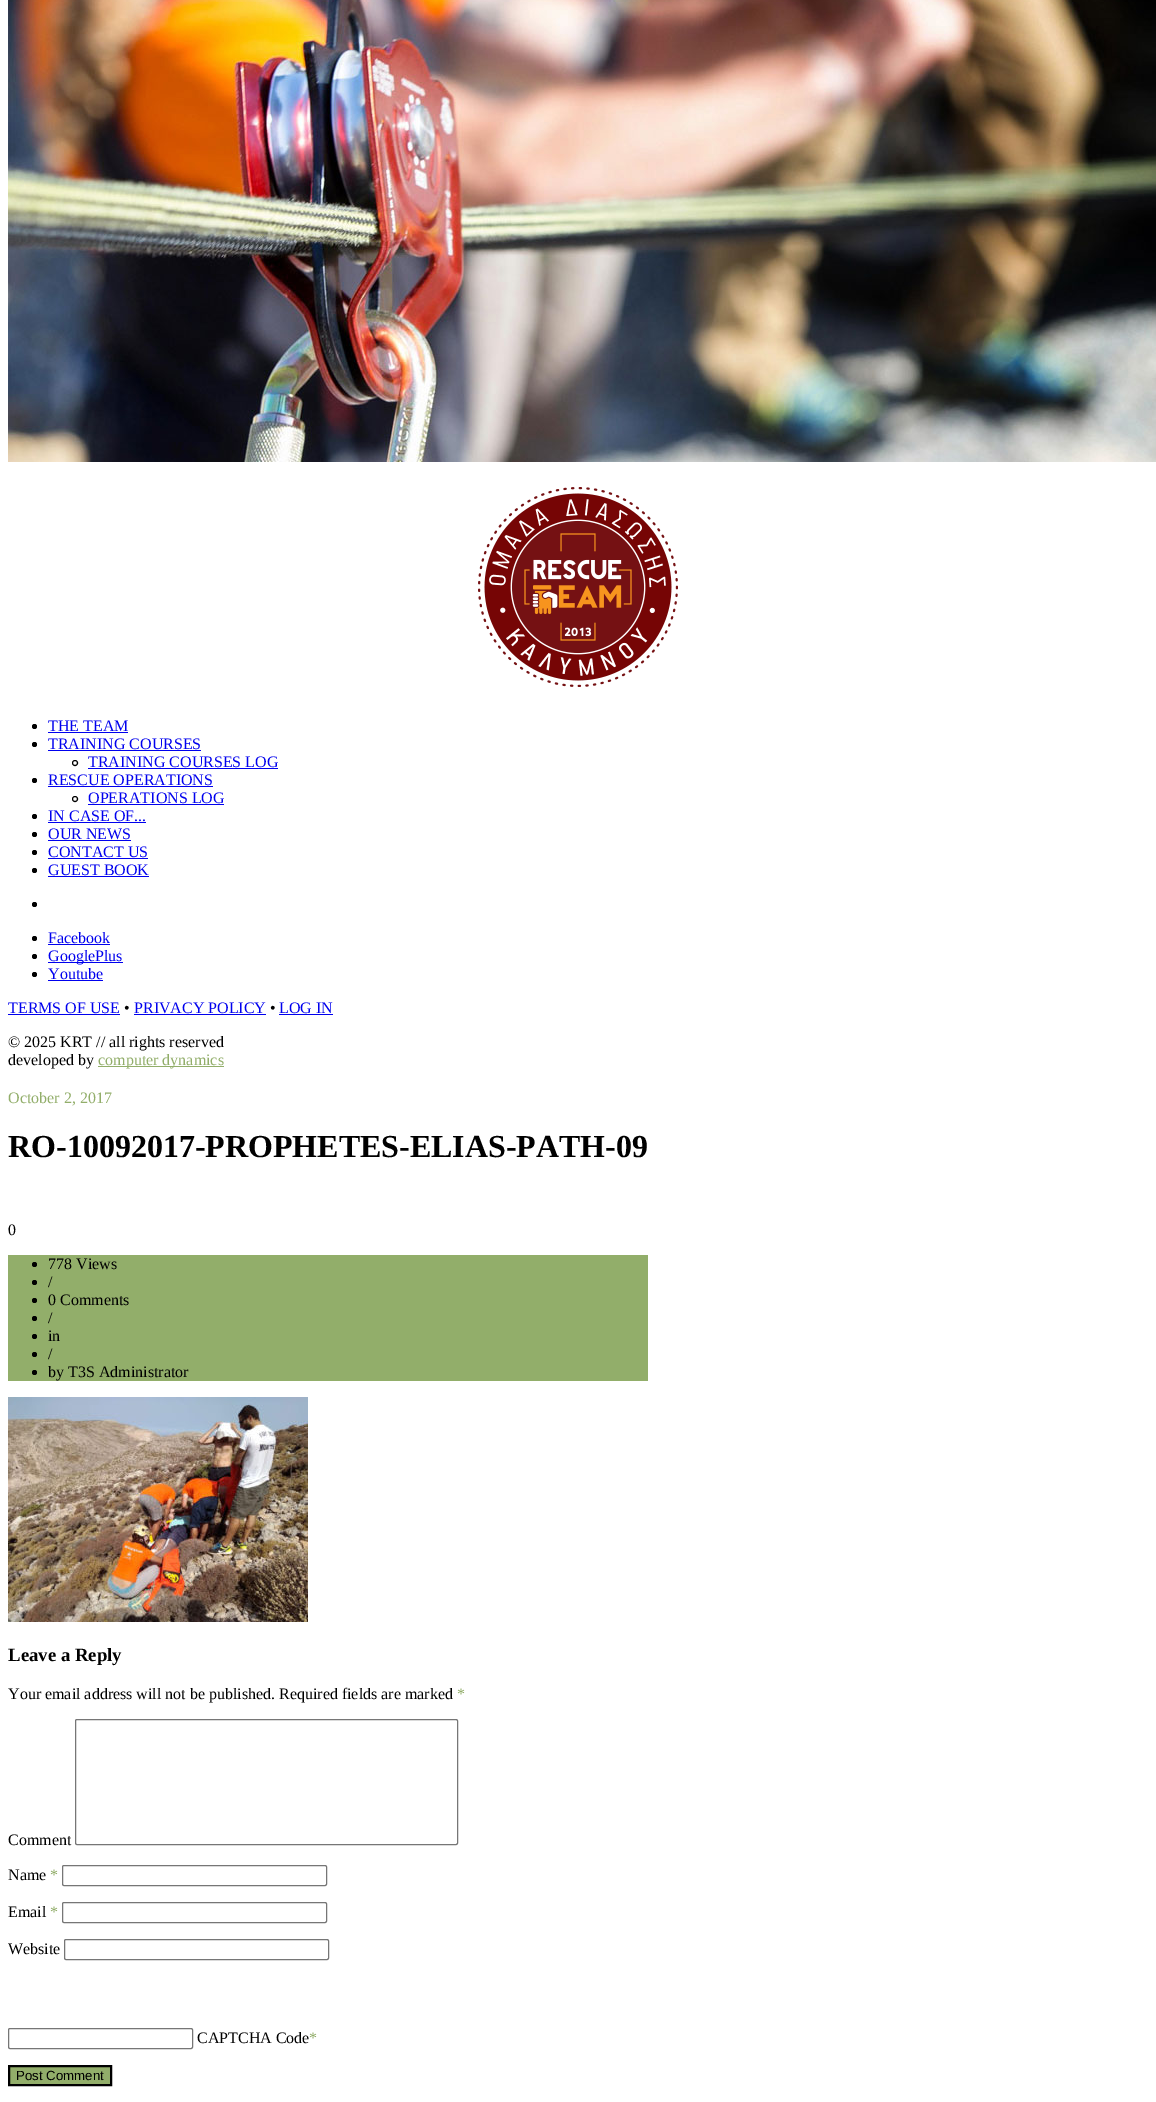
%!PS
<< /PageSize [1156 2102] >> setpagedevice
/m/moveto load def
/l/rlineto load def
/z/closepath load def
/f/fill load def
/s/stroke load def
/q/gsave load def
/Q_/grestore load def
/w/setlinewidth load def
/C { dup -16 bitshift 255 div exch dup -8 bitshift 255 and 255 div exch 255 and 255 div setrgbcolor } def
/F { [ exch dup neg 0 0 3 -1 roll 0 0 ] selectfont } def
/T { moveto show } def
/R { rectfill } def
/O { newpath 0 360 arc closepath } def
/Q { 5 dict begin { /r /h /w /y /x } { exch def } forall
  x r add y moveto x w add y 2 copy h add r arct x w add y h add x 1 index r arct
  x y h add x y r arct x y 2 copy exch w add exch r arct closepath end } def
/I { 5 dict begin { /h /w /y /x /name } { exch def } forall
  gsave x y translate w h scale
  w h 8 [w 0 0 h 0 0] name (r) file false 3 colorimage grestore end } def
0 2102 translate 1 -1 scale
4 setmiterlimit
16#FFFFFF C
0 0 1156 2102 R
(1.rgb) 8 0 1148 462 I
(2.rgb) 478 487 200 200 I
16#000000 C
34.5 726.5 2.5 O f
/LiberationSerif-Regular 16 F
16#0000EE C
(THE TEAM) 48 731 T
48 732 80 1 R
16#000000 C
34.5 744.5 2.5 O f
16#0000EE C
(TRAINING COURSES) 48 749 T
48 750 153 1 R
16#000000 C
75 763 2.5 O s
16#0000EE C
(TRAINING COURSES LOG) 88 767 T
88 768 190 1 R
16#000000 C
34.5 780.5 2.5 O f
16#0000EE C
(RESCUE OPERATIONS) 48 785 T
48 786 165 1 R
16#000000 C
75 799 2.5 O s
16#0000EE C
(OPERATIONS LOG) 88 803 T
88 804 136 1 R
16#000000 C
34.5 816.5 2.5 O f
16#0000EE C
(IN CASE OF...) 48 821 T
48 822 98 1 R
16#000000 C
34.5 834.5 2.5 O f
16#0000EE C
(OUR NEWS) 48 839 T
48 840 83 1 R
16#000000 C
34.5 852.5 2.5 O f
16#0000EE C
(CONTACT US) 48 857 T
48 858 100 1 R
16#000000 C
34.5 870.5 2.5 O f
16#0000EE C
(GUEST BOOK) 48 875 T
48 876 101 1 R
16#000000 C
34.5 904.5 2.5 O f
34.5 938.5 2.5 O f
16#0000EE C
(Facebook) 48 943 T
48 944 62 1 R
16#000000 C
34.5 956.5 2.5 O f
16#0000EE C
48 962 75 1 R
(GooglePlus) 48 961 T
16#000000 C
34.5 974.5 2.5 O f
16#0000EE C
(Youtube) 48 979 T
48 980 55 1 R
(TERMS OF USE) 8 1013 T
8 1014 112 1 R
16#000000 C
(•) 124 1013 T
16#0000EE C
(PRIVACY POLICY) 134 1013 T
134 1014 132 1 R
16#000000 C
(•) 270 1013 T
16#0000EE C
(LOG IN) 279 1013 T
279 1014 54 1 R
16#000000 C
(© 2025 KRT // all rights reserved) 8 1047 T
(developed by) 8 1065 T
16#92AE6A C
98 1066 126 1 R
(computer dynamics) 98 1065 T
(October 2, 2017) 8 1103 T
/LiberationSerif-Bold 32 F
16#000000 C
(RO-10092017-PROPHETES-ELIAS-PATH-09) 8 1157 T
/LiberationSerif-Regular 16 F
(0) 8 1235 T
16#92AE6A C
8 1255 640 126 R
16#000000 C
34.5 1264.5 2.5 O f
(778 Views) 48 1269 T
34.5 1282.5 2.5 O f
(/) 48 1287 T
34.5 1300.5 2.5 O f
(0 Comments) 48 1305 T
34.5 1318.5 2.5 O f
(/) 48 1323 T
34.5 1336.5 2.5 O f
(in) 48 1341 T
34.5 1354.5 2.5 O f
(/) 48 1359 T
34.5 1372.5 2.5 O f
(by T3S Administrator) 48 1377 T
(3.rgb) 8 1397 300 225 I
/LiberationSerif-Bold 18.75 F
(Leave a Reply) 8 1661 T
/LiberationSerif-Regular 16 F
(Your email address will not be published. Required fields are marked) 8 1699 T
16#92AE6A C
(*) 457 1699 T
16#000000 C
(Comment) 8 1845 T
16#767676 C
75.5 1719.5 382 125 1.5 Q s
16#000000 C
(Name) 8 1880 T
16#92AE6A C
(*) 50 1880 T
16#767676 C
62.5 1865.5 264 20 1.5 Q s
16#000000 C
(Email) 8 1917 T
16#92AE6A C
(*) 50 1917 T
16#767676 C
62.5 1902.5 264 20 1.5 Q s
16#000000 C
(Website) 8 1954 T
16#767676 C
64.5 1939.5 264 20 1.5 Q s
8.5 2028.5 184 20 1.5 Q s
16#000000 C
(CAPTCHA Code) 197 2043 T
16#92AE6A C
(*) 309 2043 T
9 2066 m 102 0 l 0 19 l -102 0 l z q f Q_
16#000000 C
2 w
s
/LiberationSans-Regular 13.25 F
(Post Comment) 16 2080 T
showpage
